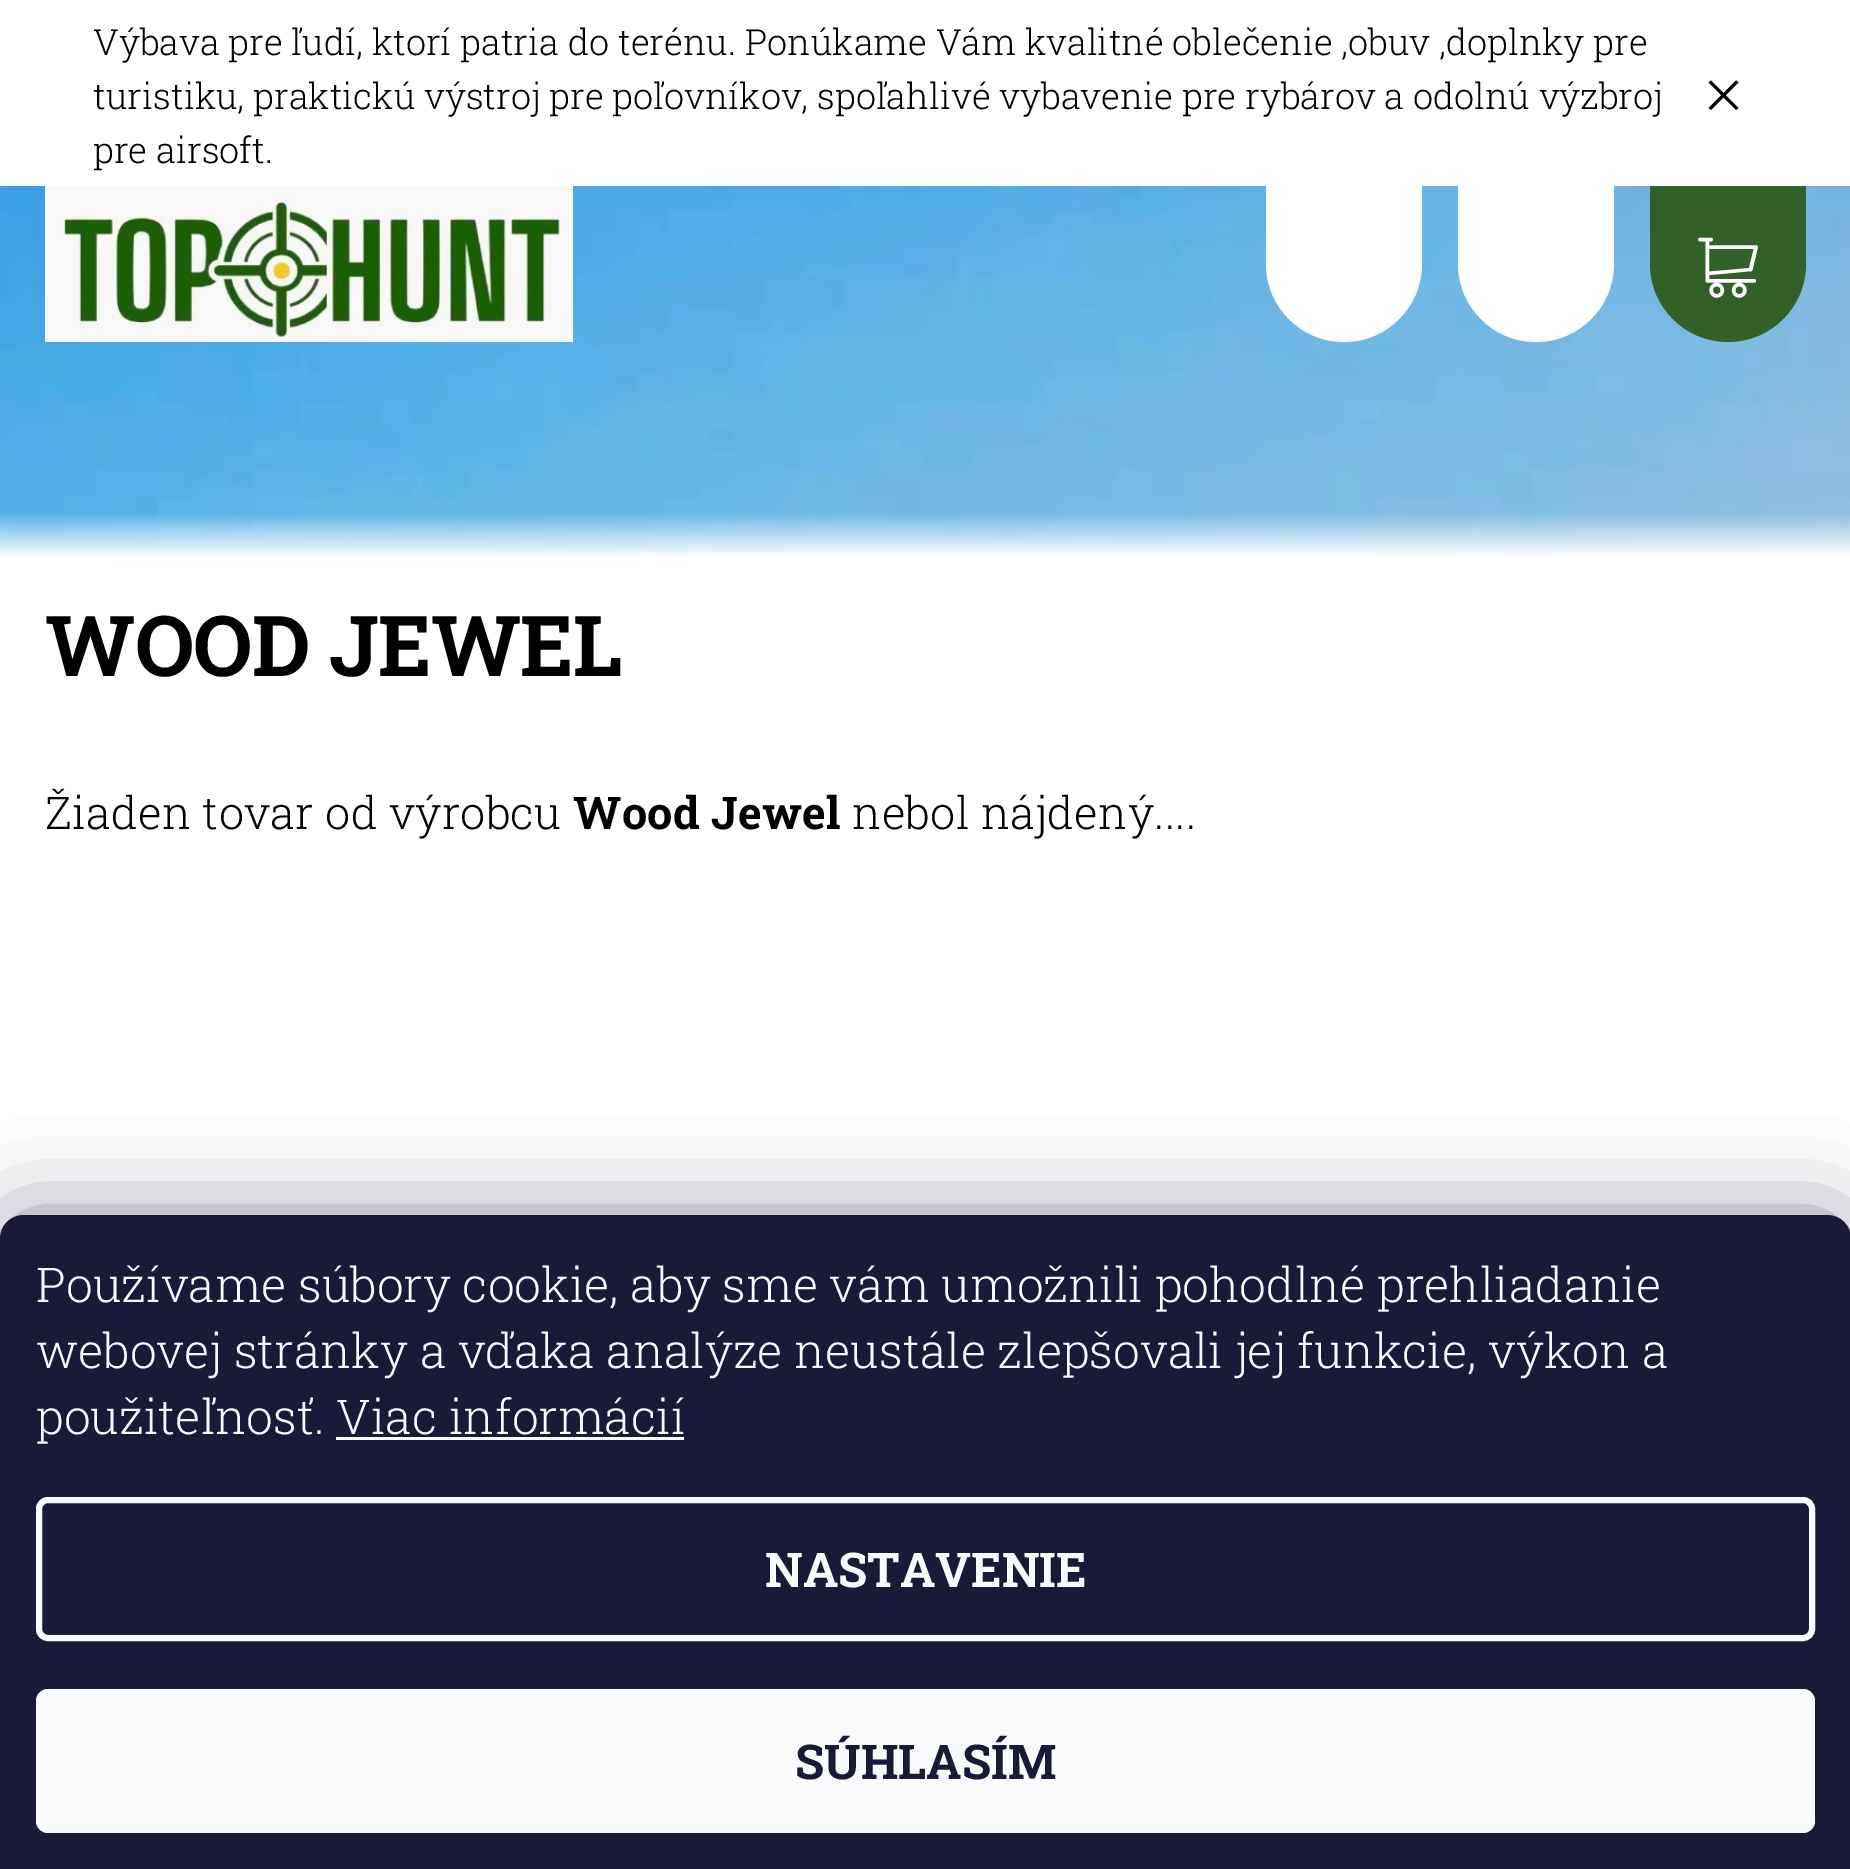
%!PS
<< /PageSize [1850 1869] /PageUsesTransparency true >> setpagedevice
/m/moveto load def
/l/rlineto load def
/c/rcurveto load def
/z/closepath load def
/f/fill load def
/s/stroke load def
/w/setlinewidth load def
/C { dup -16 bitshift 255 div exch dup -8 bitshift 255 and 255 div exch 255 and 255 div setrgbcolor } def
/F { [ exch dup neg 0 0 3 -1 roll 0 0 ] selectfont } def
/T { moveto show } def
/R { rectfill } def
/A { dup .setfillconstantalpha .setstrokeconstantalpha } def
/Q { 5 dict begin { /r /h /w /y /x } { exch def } forall
  x r add y moveto x w add y 2 copy h add r arct x w add y h add x 1 index r arct
  x y h add x y r arct x y 2 copy exch w add exch r arct closepath end } def
/S { 12 dict begin { /a /b /q /h /w /y /x } { exch def } forall gsave /was 0 def
  9 -2 -9 { dup b mul 4 div /e exch def 1 sub .425 mul 2.718 exch exp 1 add a .99 .min exch div /now exch def
    1 1 now sub 1 was sub div sub A /was now def
    w h .min e 2 mul add 0 gt { x e sub y e sub w e 2 mul add h e 2 mul add
      q e add b .6 mul add w h .min 2 div e add .min 0 .max Q fill } if } for grestore end } def
/I { 5 dict begin { /h /w /y /x /name } { exch def } forall
  gsave x y translate w h scale
  w h 8 [w 0 0 h 0 0] name (r) file false 3 colorimage grestore end } def
0 .pushpdf14devicefilter
0 1869 translate 1 -1 scale
4 setmiterlimit
16#FFFFFF C
0 0 1850 1869 R
/RobotoSlab-Light 36 F
16#000000 C
(Výbava pre ľudí, ktorí patria do terénu. Ponúkame Vám kvalitné oblečenie ,obuv ,doplnky pre) 93 55 T
(turistiku, praktickú výstroj pre poľovníkov, spoľahlivé vybavenie pre rybárov a odolnú výzbroj) 93 109 T
(pre airsoft.) 93 163 T
1711 80.5 m 27.5 27.5 l -2.5 2 l -27.5 -27.5 l z f
1736 80.5 m 2.5 2 l -27.5 27.5 l -2.5 -2 l z f
(1.rgb) 0 186 1850 372 I
(2.rgb) 45 186 528 156 I
16#FFFFFF C
1266 186 m 156 0 l 0 78 l 0 43 -35 78 -78 78 c -43 0 -78 -35 -78 -78 c z f
1458 186 m 156 0 l 0 78 l 0 43 -35 78 -78 78 c -43 0 -78 -35 -78 -78 c z f
16#316029 C
1650 186 m 156 0 l 0 78 l 0 43 -35 78 -78 78 c -43 0 -78 -35 -78 -78 c z f
(3.rgb) 1698 237 60 61 I
/RobotoSlab-Bold 84 F
16#000000 C
45 676 m -.75 0 (WOOD JEWEL) ashow
/RobotoSlab-Light 45 F
45 829 m .3 0 (Žiaden tovar od výrobcu) ashow
/RobotoSlab-Bold 45 F
573 829 m .3 0 (Wood Jewel) ashow
/RobotoSlab-Light 45 F
852 829 m .3 0 (nebol nájdený....) ashow
16#1B1939 C
0 1215 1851 654 24 45 .5 S
16#1A1937 C
24 1215 m 1803 0 l 13.5 0 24 10.5 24 24 c 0 630 l -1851 0 l 0 -630 l 0 -13.5 10.5 -24 24 -24 c z f
/RobotoSlab-Light 48 F
16#F8FAFB C
(Používame súbory cookie, aby sme vám umožnili pohodlné prehliadanie) 36 1302 T
(webovej stránky a vďaka analýze neustále zlepšovali jej funkcie, výkon a) 36 1368 T
(použiteľnosť. Viac informácií) 36 1434 T
336 1437 348 3 R
6 w
39 1500 1773 138 9 Q s
/RobotoSlab-Bold 48 F
(NASTAVENIE) 765 1587 T
36 1689 1779 144 12 Q f
16#1A1937 C
(SÚHLASÍM) 795 1779 T
.poppdf14devicefilter showpage
